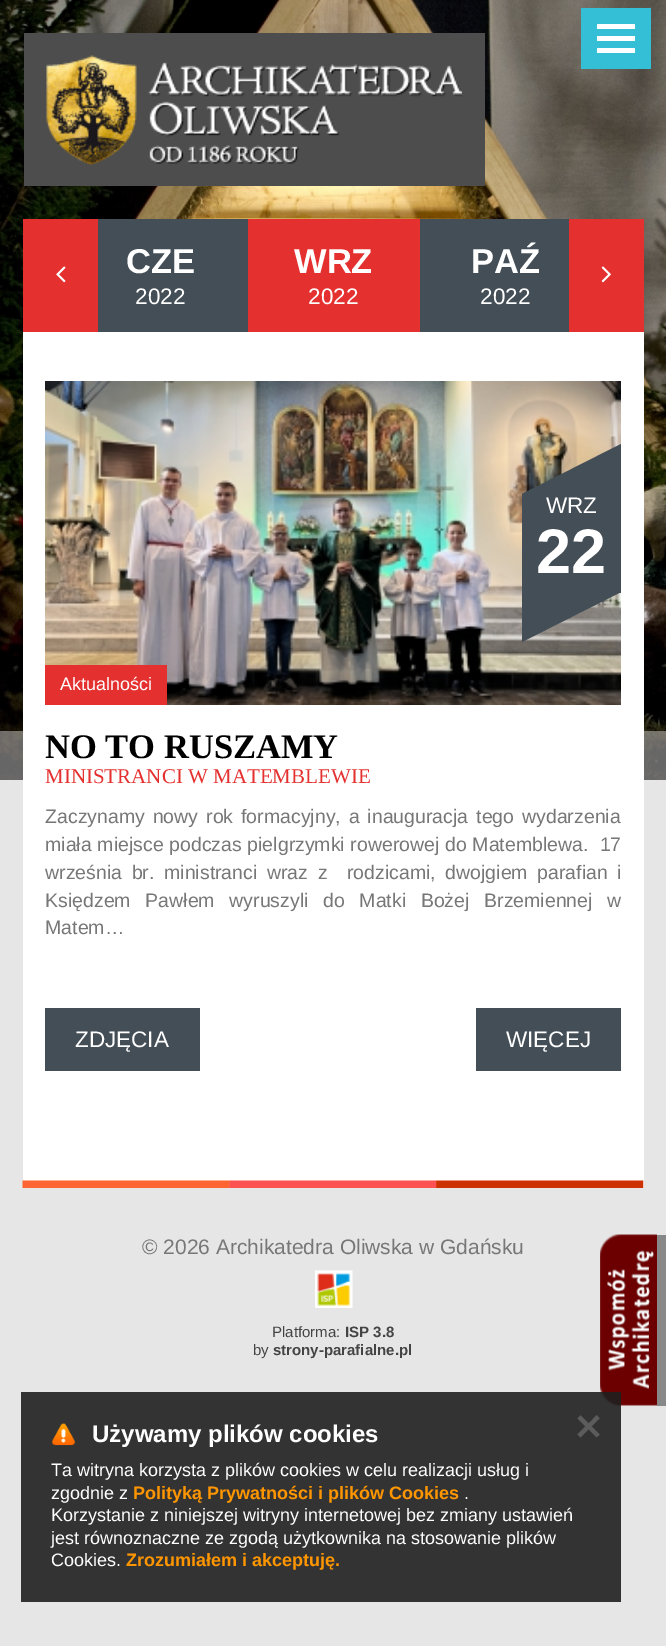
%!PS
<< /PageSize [666 1646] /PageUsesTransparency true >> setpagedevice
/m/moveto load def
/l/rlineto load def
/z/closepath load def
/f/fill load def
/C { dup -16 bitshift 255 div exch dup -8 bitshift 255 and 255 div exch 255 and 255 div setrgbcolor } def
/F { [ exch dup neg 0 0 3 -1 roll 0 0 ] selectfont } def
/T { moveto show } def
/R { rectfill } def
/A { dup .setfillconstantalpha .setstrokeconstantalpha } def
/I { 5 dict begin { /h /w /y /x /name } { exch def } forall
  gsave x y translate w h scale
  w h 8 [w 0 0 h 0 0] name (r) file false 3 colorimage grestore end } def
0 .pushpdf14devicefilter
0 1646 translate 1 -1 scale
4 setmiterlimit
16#E6E6E6 C
0 0 666 1646 R
(1.rgb) 0 0 666 780 I
0.4 A
16#FFFFFF C
0 731 666 49 R
1 A
16#4D4D4D C
24 33 461 153 R
(2.rgb) 46 55 416 110 I
16#35BFD6 C
581 8 70 61 R
16#FFFFFF C
597 24 38 5 R
597 36 38 5 R
597 48 38 5 R
23 332 621 856 R
(3.rgb) 22 1180 622 8 I
16#444E56 C
98 219 471 113 R
16#E4302F C
23 219 75 113 R
(4.rgb) 56 266 10 17 I
569 219 75 113 R
(5.rgb) 601 266 10 17 I
/LiberationSans-Bold 34.5 F
16#FFFFFF C
(CZE) 126 273 T
/LiberationSans-Regular 22.5 F
(2022) 135 304 T
16#E4302F C
248 219 172 113 R
/LiberationSans-Bold 34.5 F
16#FFFFFF C
(WRZ) 294 273 T
/LiberationSans-Regular 22.5 F
(2022) 308 304 T
/LiberationSans-Bold 34.5 F
(PAŹ) 471 273 T
/LiberationSans-Regular 22.5 F
(2022) 480 304 T
(6.rgb) 45 381 576 324 I
16#444E56 C
522 494 99 99 R
621 494 m -99 0 l 99 -50 l z f
16#FFFFFF C
(WRZ) 546 513 T
/LiberationSans-Bold 63 F
(22) 536 573 T
16#444E56 C
522 592 m 99 0 l -99 50 l z f
16#E4302F C
45 665 122 40 R
/LiberationSans-Regular 18 F
16#FFFFFF C
(Aktualności) 60 690 T
/LiberationSerif-Bold 34.5 F
16#000000 C
(NO TO RUSZAMY) 45 758 T
/LiberationSerif-Regular 21 F
16#E4302F C
(MINISTRANCI W MATEMBLEWIE) 45 783 T
/LiberationSans-Regular 19.5 F
16#777777 C
45 823 m 2.5 0 32 (Zaczynamy nowy rok formacyjny, a inauguracja tego wydarzenia) widthshow
45 851 m .25 0 32 (miała miejsce podczas pielgrzymki rowerowej do Matemblewa.  17) widthshow
45 879 m 4.25 0 32 (września br. ministranci wraz z  rodzicami, dwojgiem parafian i) widthshow
45 907 m 9.25 0 32 (Księdzem Pawłem wyruszyli do Matki Bożej Brzemiennej w) widthshow
(Matem…) 45 934 T
16#444E56 C
45 1008 155 63 R
/LiberationSans-Regular 22.5 F
16#FFFFFF C
(ZDJĘCIA) 75 1047 T
16#444E56 C
476 1008 145 63 R
16#FFFFFF C
(WIĘCEJ) 506 1047 T
/LiberationSans-Regular 21 F
16#777777 C
(© 2026 Archikatedra Oliwska w Gdańsku) 142 1254 T
(7.rgb) 315 1270 38 38 I
/LiberationSans-Regular 15 F
16#444444 C
(Platforma:) 272 1337 T
/LiberationSans-Bold 15 F
(ISP 3.8) 345 1337 T
/LiberationSans-Regular 15 F
(by) 253 1355 T
/LiberationSans-Bold 15 F
(strony-parafialne.pl) 273 1355 T
16#888888 C
657 1235 9 171 R
(8.rgb) 600 1234 57 172 I
0.9 A
16#1F1F1F C
21 1392 600 210 R
1 A
(9.rgb) 51 1423 24 23 I
/LiberationSans-Bold 24 F
16#FFFFFF C
(Używamy plików cookies) 92 1442 T
/DejaVuSans-Bold 36 F
16#5C5C5C C
(✕) 573 1440 T
/LiberationSans-Regular 18 F
16#FFFFFF C
(Ta witryna korzysta z plików cookies w celu realizacji usług i) 51 1476 T
(zgodnie z) 51 1499 T
/LiberationSans-Bold 18 F
16#FF9600 C
(Polityką Prywatności i plików Cookies) 133 1499 T
/LiberationSans-Regular 18 F
16#FFFFFF C
(.) 464 1499 T
(Korzystanie z niniejszej witryny internetowej bez zmiany ustawień) 51 1521 T
(jest równoznaczne ze zgodą użytkownika na stosowanie plików) 51 1544 T
(Cookies.) 51 1566 T
/LiberationSans-Bold 18 F
16#FF9600 C
(Zrozumiałem i akceptuję.) 126 1566 T
.poppdf14devicefilter showpage
